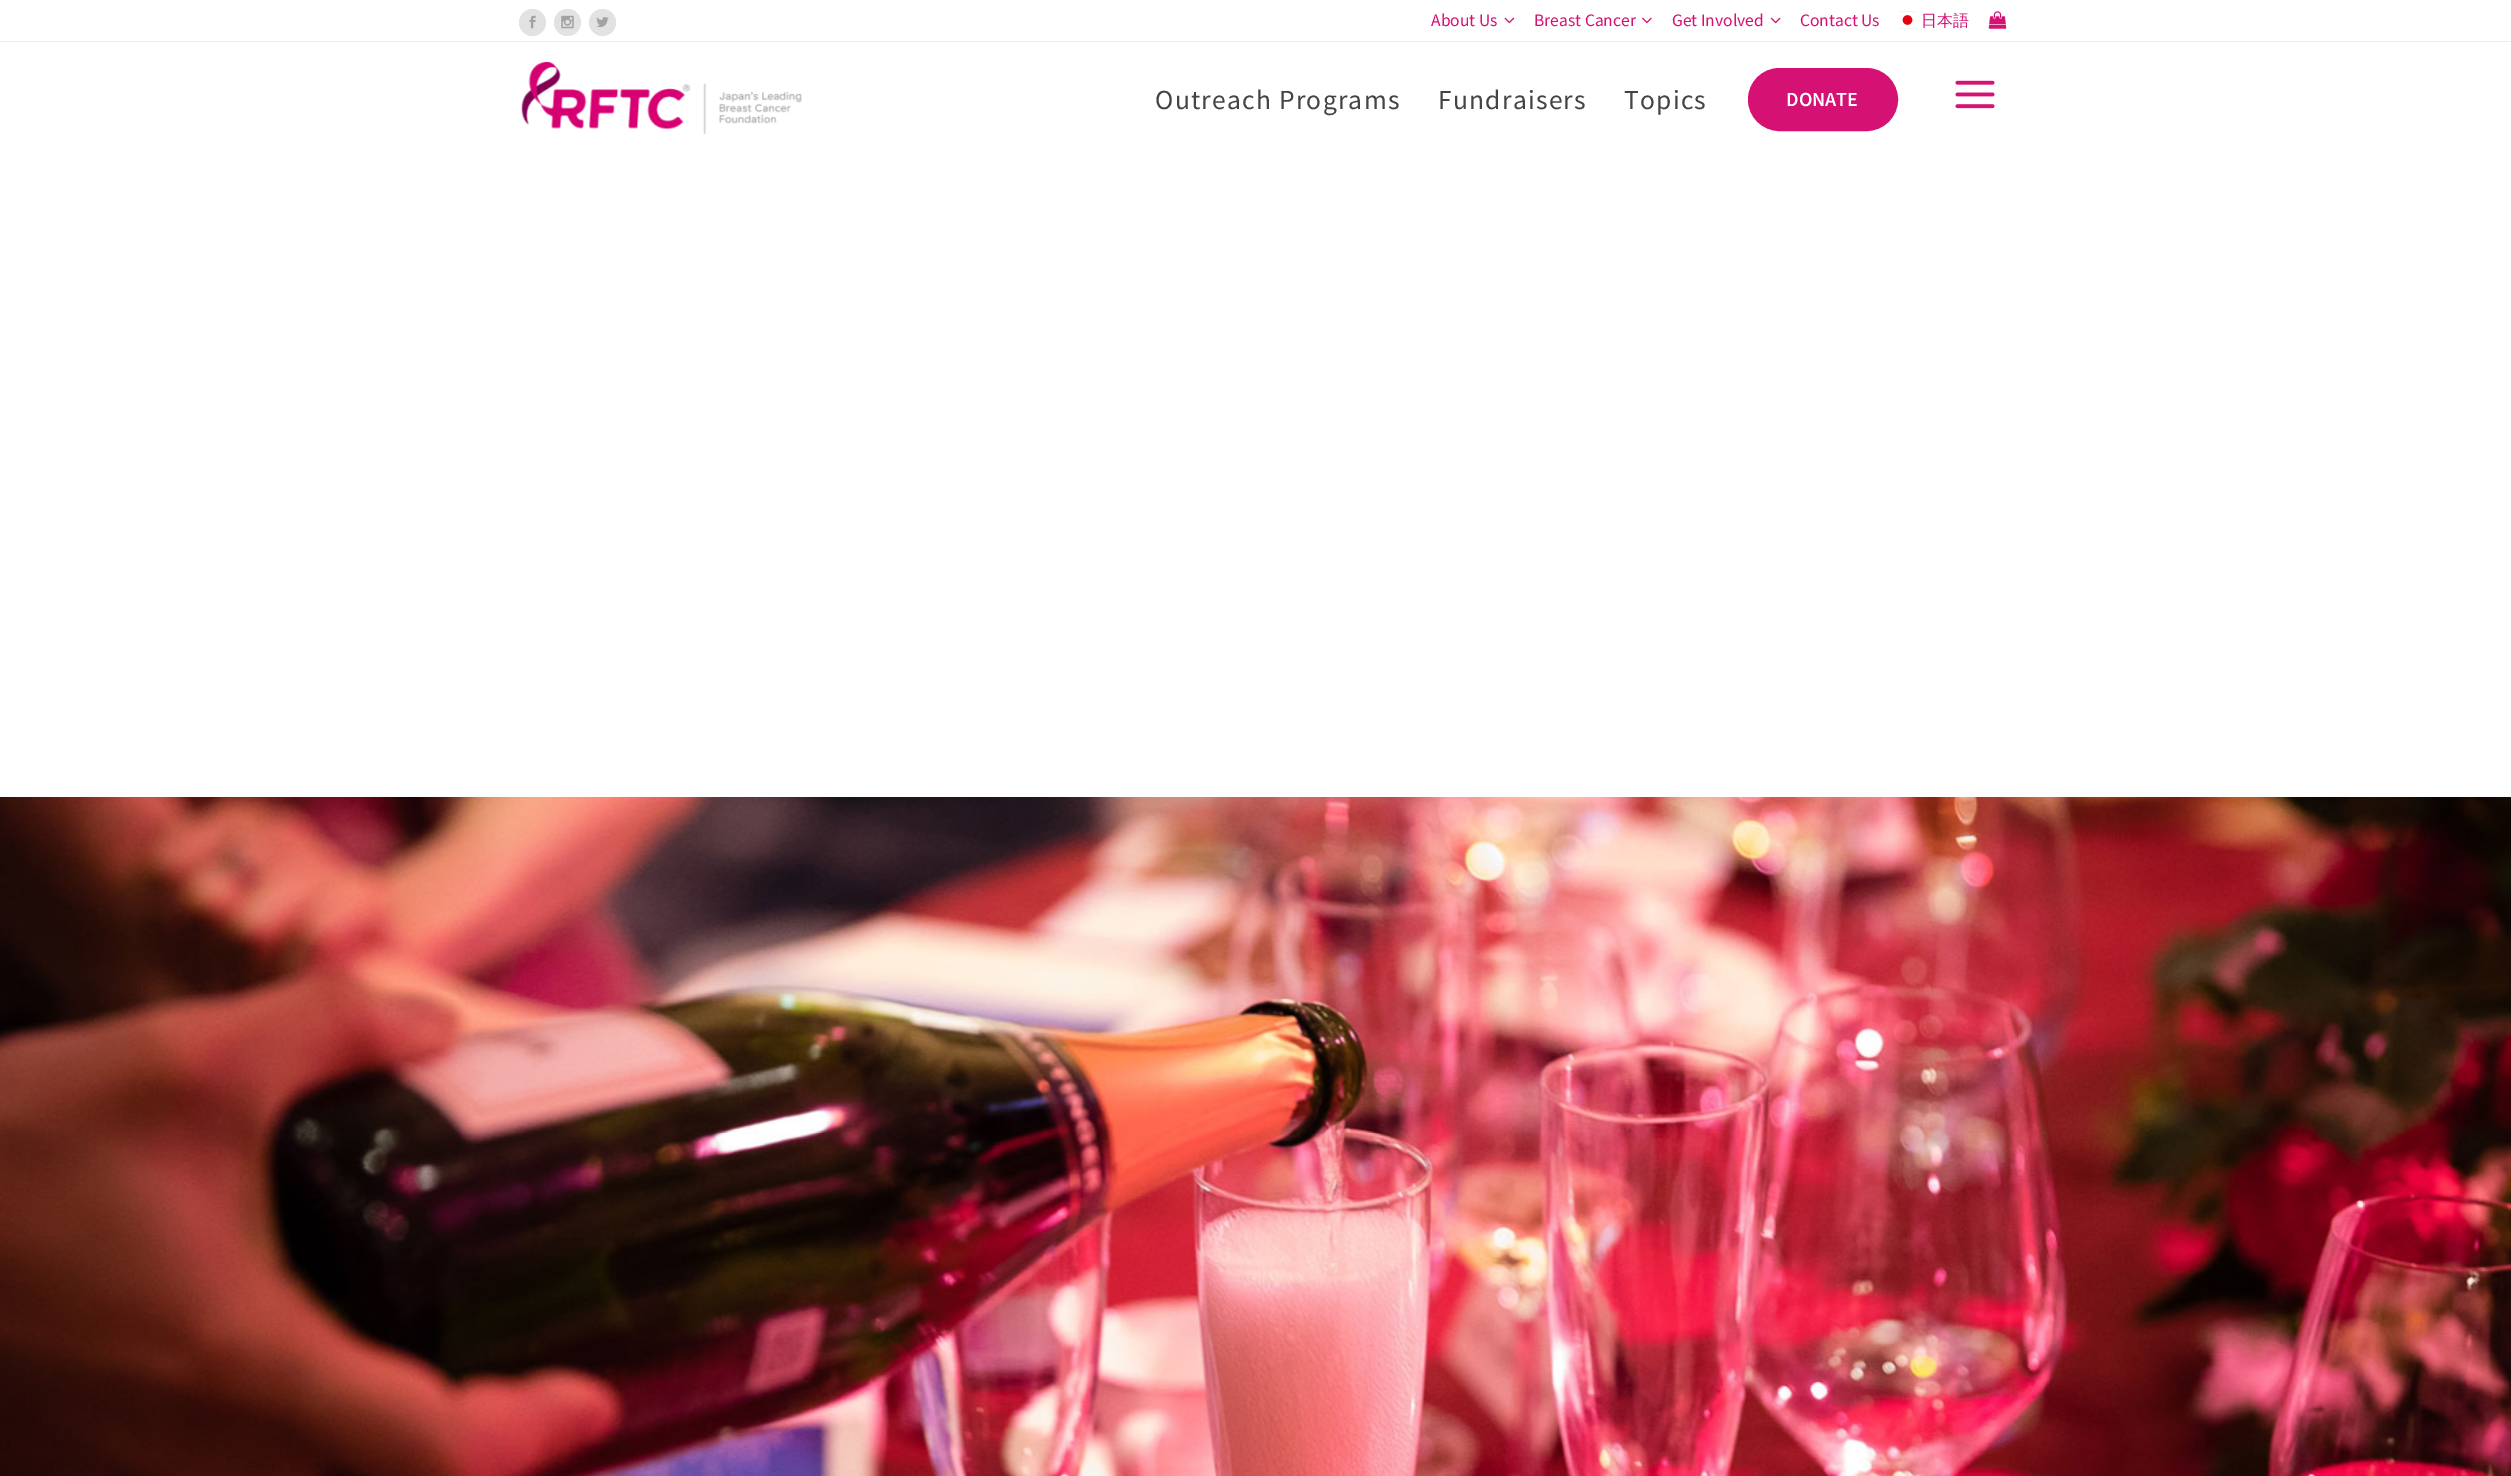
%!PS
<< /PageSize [2511 1476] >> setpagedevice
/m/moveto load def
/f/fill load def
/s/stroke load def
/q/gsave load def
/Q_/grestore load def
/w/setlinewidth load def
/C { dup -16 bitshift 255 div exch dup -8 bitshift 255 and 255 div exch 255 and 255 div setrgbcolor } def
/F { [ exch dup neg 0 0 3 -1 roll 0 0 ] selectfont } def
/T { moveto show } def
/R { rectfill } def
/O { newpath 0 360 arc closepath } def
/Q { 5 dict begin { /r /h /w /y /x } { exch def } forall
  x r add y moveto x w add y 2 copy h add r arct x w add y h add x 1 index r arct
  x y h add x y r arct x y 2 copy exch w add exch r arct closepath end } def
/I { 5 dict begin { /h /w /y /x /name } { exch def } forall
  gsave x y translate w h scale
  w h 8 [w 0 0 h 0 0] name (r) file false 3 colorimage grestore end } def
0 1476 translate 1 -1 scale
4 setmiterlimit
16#FFFFFF C
0 0 2511 1476 R
16#FFE5E5 C
0 41 2511 1 R
16#E2E2E2 C
532.5 22.5 13.5 O f
(1.rgb) 529 15 7 14 I
567.5 22.5 13.5 O f
(2.rgb) 561 15 13 14 I
602.5 22.5 13.5 O f
(3.rgb) 596 17 13 11 I
/SourceSansPro-Regular 17.5 F
16#D51174 C
(About Us) 1431 26 T
(4.rgb) 1504 17 11 7 I
(Breast Cancer) 1534 26 T
(5.rgb) 1642 17 10 7 I
(Get Involved) 1672 26 T
(6.rgb) 1770 17 11 7 I
(Contact Us) 1800 26 T
(7.rgb) 1899 11 17 18 I
/WenQuanYiZenHei-Medium 16 F
(日本語) 1921 26 T
(8.rgb) 1988 11 19 18 I
(9.rgb) 521 61 281 74 I
/SourceSansPro-Regular 27.5 F
16#444444 C
1155 109 m 1.25 0 (Outreach Programs) ashow
1438 109 m 1.25 0 (Fundraisers) ashow
1624 109 m 1.25 0 (Topics) ashow
16#D51174 C
1749.5 69.5 147 60 30 Q q f Q_
3 w
s
/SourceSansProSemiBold-SemiBold 20 F
16#FFFFFF C
(DONATE) 1786 106 T
(10.rgb) 1955 80 40 29 I
(11.rgb) 0 797 2511 679 I
showpage
